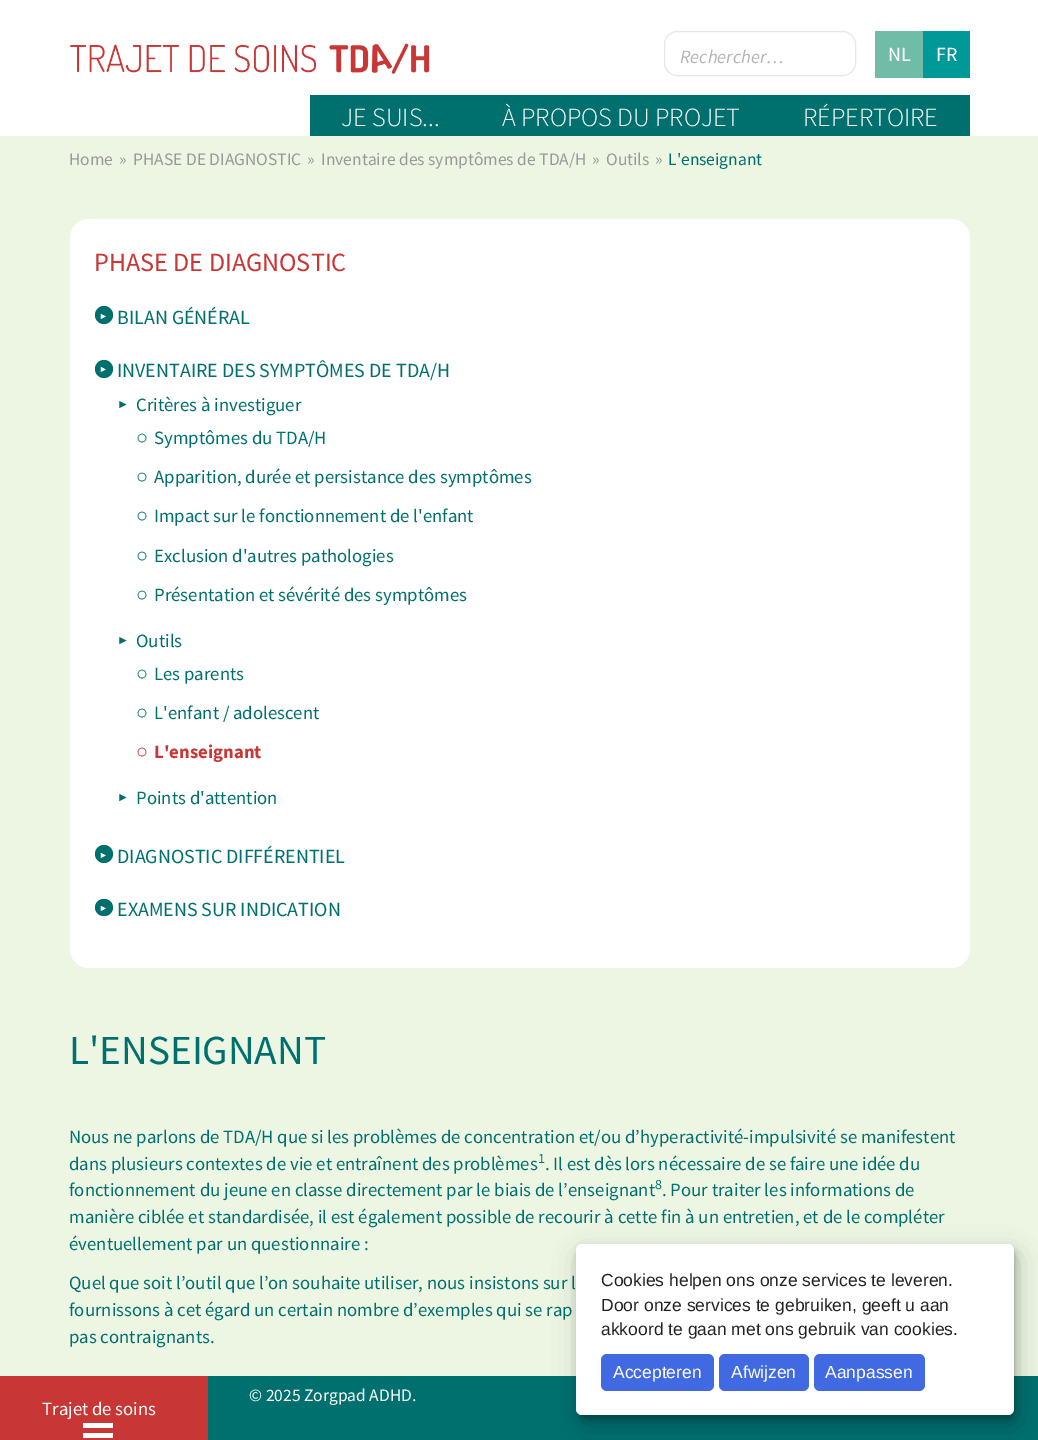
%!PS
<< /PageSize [1038 1440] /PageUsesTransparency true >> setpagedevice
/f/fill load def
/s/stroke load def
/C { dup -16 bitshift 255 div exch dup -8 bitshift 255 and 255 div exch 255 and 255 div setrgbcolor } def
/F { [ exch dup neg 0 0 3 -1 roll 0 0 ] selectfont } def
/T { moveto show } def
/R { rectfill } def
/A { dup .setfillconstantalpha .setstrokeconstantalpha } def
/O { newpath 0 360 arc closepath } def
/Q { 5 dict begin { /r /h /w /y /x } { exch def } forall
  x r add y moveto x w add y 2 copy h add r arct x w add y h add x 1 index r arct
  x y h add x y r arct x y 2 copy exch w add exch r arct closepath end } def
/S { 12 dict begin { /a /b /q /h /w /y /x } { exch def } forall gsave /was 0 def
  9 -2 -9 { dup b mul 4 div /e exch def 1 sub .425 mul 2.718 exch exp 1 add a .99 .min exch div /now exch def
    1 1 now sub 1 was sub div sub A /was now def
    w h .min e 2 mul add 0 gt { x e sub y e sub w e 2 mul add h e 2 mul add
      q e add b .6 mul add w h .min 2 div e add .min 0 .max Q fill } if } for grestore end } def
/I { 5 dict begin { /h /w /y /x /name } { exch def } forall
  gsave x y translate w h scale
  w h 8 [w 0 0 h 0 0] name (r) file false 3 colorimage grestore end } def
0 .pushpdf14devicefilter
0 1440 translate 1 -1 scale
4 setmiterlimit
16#EDF6E3 C
0 0 1038 1440 R
16#FFFFFF C
0 0 1038 136 R
(1.rgb) 70 43 360 31 I
16#E7E7E7 C
664.5 31.5 191 44 12.5 Q s
/SourceSansPro-Italic 18.75 F
16#B3B3B3 C
(Rechercher…) 680 63 T
16#70BCA6 C
875 31 48 47 R
/SourceSansPro-Regular 20 F
16#FFFFFF C
(NL) 888 61 T
16#009997 C
923 31 47 47 R
16#FFFFFF C
(FR) 936 61 T
16#00706F C
310 95 660 41 R
/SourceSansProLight-Light 26.25 F
16#FFFFFF C
(JE SUIS...) 341 126 T
(À PROPOS DU PROJET) 502 126 T
(RÉPERTOIRE) 803 126 T
/SourceSansPro-Regular 17.5 F
16#999999 C
(Home) 69 165 T
(») 119 165 T
(PHASE DE DIAGNOSTIC) 133 165 T
(») 307 165 T
(Inventaire des symptômes de TDA/H) 321 165 T
(») 592 165 T
(Outils) 606 165 T
(») 655 165 T
16#00706F C
(L'enseignant) 668 165 T
16#FFFFFF C
70 219 900 749 19 Q f
/SourceSansPro-Regular 26.25 F
16#C83736 C
(PHASE DE DIAGNOSTIC) 94 271 T
16#00706F C
104 315 9 O f
/LiberationSans-Regular 9 F
16#FFFFFF C
(►) 99 319 T
/SourceSansPro-Regular 20 F
16#00706F C
(BILAN GÉNÉRAL) 117 324 T
104 369 9 O f
/LiberationSans-Regular 9 F
16#FFFFFF C
(►) 99 372 T
/SourceSansPro-Regular 20 F
16#00706F C
(INVENTAIRE DES SYMPTÔMES DE TDA/H) 117 377 T
/LiberationSans-Regular 12 F
(►) 117 408 T
/SourceSansPro-Regular 18.75 F
(Critères à investiguer) 136 411 T
/LiberationSans-Regular 20 F
(○) 136 444 T
/SourceSansPro-Regular 18.75 F
(Symptômes du TDA/H) 154 444 T
/LiberationSans-Regular 20 F
(○) 136 483 T
/SourceSansPro-Regular 18.75 F
(Apparition, durée et persistance des symptômes) 154 483 T
/LiberationSans-Regular 20 F
(○) 136 522 T
/SourceSansPro-Regular 18.75 F
(Impact sur le fonctionnement de l'enfant) 154 522 T
/LiberationSans-Regular 20 F
(○) 136 562 T
/SourceSansPro-Regular 18.75 F
(Exclusion d'autres pathologies) 154 562 T
/LiberationSans-Regular 20 F
(○) 136 601 T
/SourceSansPro-Regular 18.75 F
(Présentation et sévérité des symptômes) 154 601 T
/LiberationSans-Regular 12 F
(►) 117 644 T
/SourceSansPro-Regular 18.75 F
(Outils) 136 647 T
/LiberationSans-Regular 20 F
(○) 136 680 T
/SourceSansPro-Regular 18.75 F
(Les parents) 154 680 T
/LiberationSans-Regular 20 F
(○) 136 719 T
/SourceSansPro-Regular 18.75 F
(L'enfant / adolescent) 154 719 T
/LiberationSans-Bold 20 F
16#C83736 C
(○) 136 758 T
/SourceSansPro-Bold 18.75 F
(L'enseignant) 154 758 T
/LiberationSans-Regular 12 F
16#00706F C
(►) 117 801 T
/SourceSansPro-Regular 18.75 F
(Points d'attention) 136 804 T
104 854 9 O f
/LiberationSans-Regular 9 F
16#FFFFFF C
(►) 99 858 T
/SourceSansPro-Regular 20 F
16#00706F C
(DIAGNOSTIC DIFFÉRENTIEL) 117 863 T
95 899 18 17 8.5 Q f
/LiberationSans-Regular 9 F
16#FFFFFF C
(►) 99 911 T
/SourceSansPro-Regular 20 F
16#00706F C
(EXAMENS SUR INDICATION) 117 916 T
/SourceSansPro-Regular 41.25 F
(L'ENSEIGNANT) 69 1064 T
/SourceSansPro-Regular 18.75 F
(Nous ne parlons de TDA/H que si les problèmes de concentration et/ou d’hyperactivité-impulsivité se manifestent) 69 1143 T
(dans plusieurs contextes de vie et entraînent des problèmes) 69 1170 T
/SourceSansPro-Regular 14 F
(1) 538 1163 T
/SourceSansPro-Regular 18.75 F
(. Il est dès lors nécessaire de se faire une idée du) 545 1170 T
(fonctionnement du jeune en classe directement par le biais de l’enseignant) 69 1196 T
/SourceSansPro-Regular 14 F
(8) 655 1189 T
/SourceSansPro-Regular 18.75 F
(. Pour traiter les informations de) 662 1196 T
(manière ciblée et standardisée, il est également possible de recourir à cette fin à un entretien, et de le compléter) 69 1223 T
(éventuellement par un questionnaire :) 69 1250 T
(Quel que soit l’outil que l’on souhaite utiliser, nous insistons sur l) 69 1289 T
(fournissons à cet égard un certain nombre d’exemples qui se rap) 69 1316 T
(pas contraignants.) 69 1343 T
208 1376 830 64 R
16#000000 C
580 1254 438 171 6 13 .2 S
578 1248 437 171 6 3.5 .25 S
16#FFFFFF C
576 1244 438 171 6 Q f
/LiberationSans-Regular 17.5 F
16#222222 C
(Cookies helpen ons onze services te leveren.) 601 1286 T
(Door onze services te gebruiken, geeft u aan) 601 1311 T
(akkoord te gaan met ons gebruik van cookies.) 601 1335 T
16#4169E1 C
601 1354 113 37 6 Q f
16#FFFFFF C
(Accepteren) 613 1378 T
16#4169E1 C
719 1354 90 37 6 Q f
16#FFFFFF C
(Afwijzen) 731 1378 T
16#4169E1 C
814 1354 111 37 6 Q f
16#FFFFFF C
(Aanpassen) 825 1378 T
/SourceSansPro-Regular 17.5 F
(© 2025 Zorgpad ADHD.) 249 1401 T
16#C83736 C
0 1376 208 64 R
/SourceSansPro-Regular 18.75 F
16#FFFFFF C
(Trajet de soins) 42 1415 T
83 1433 30 5 R
83 1423 30 5 R
.poppdf14devicefilter showpage
